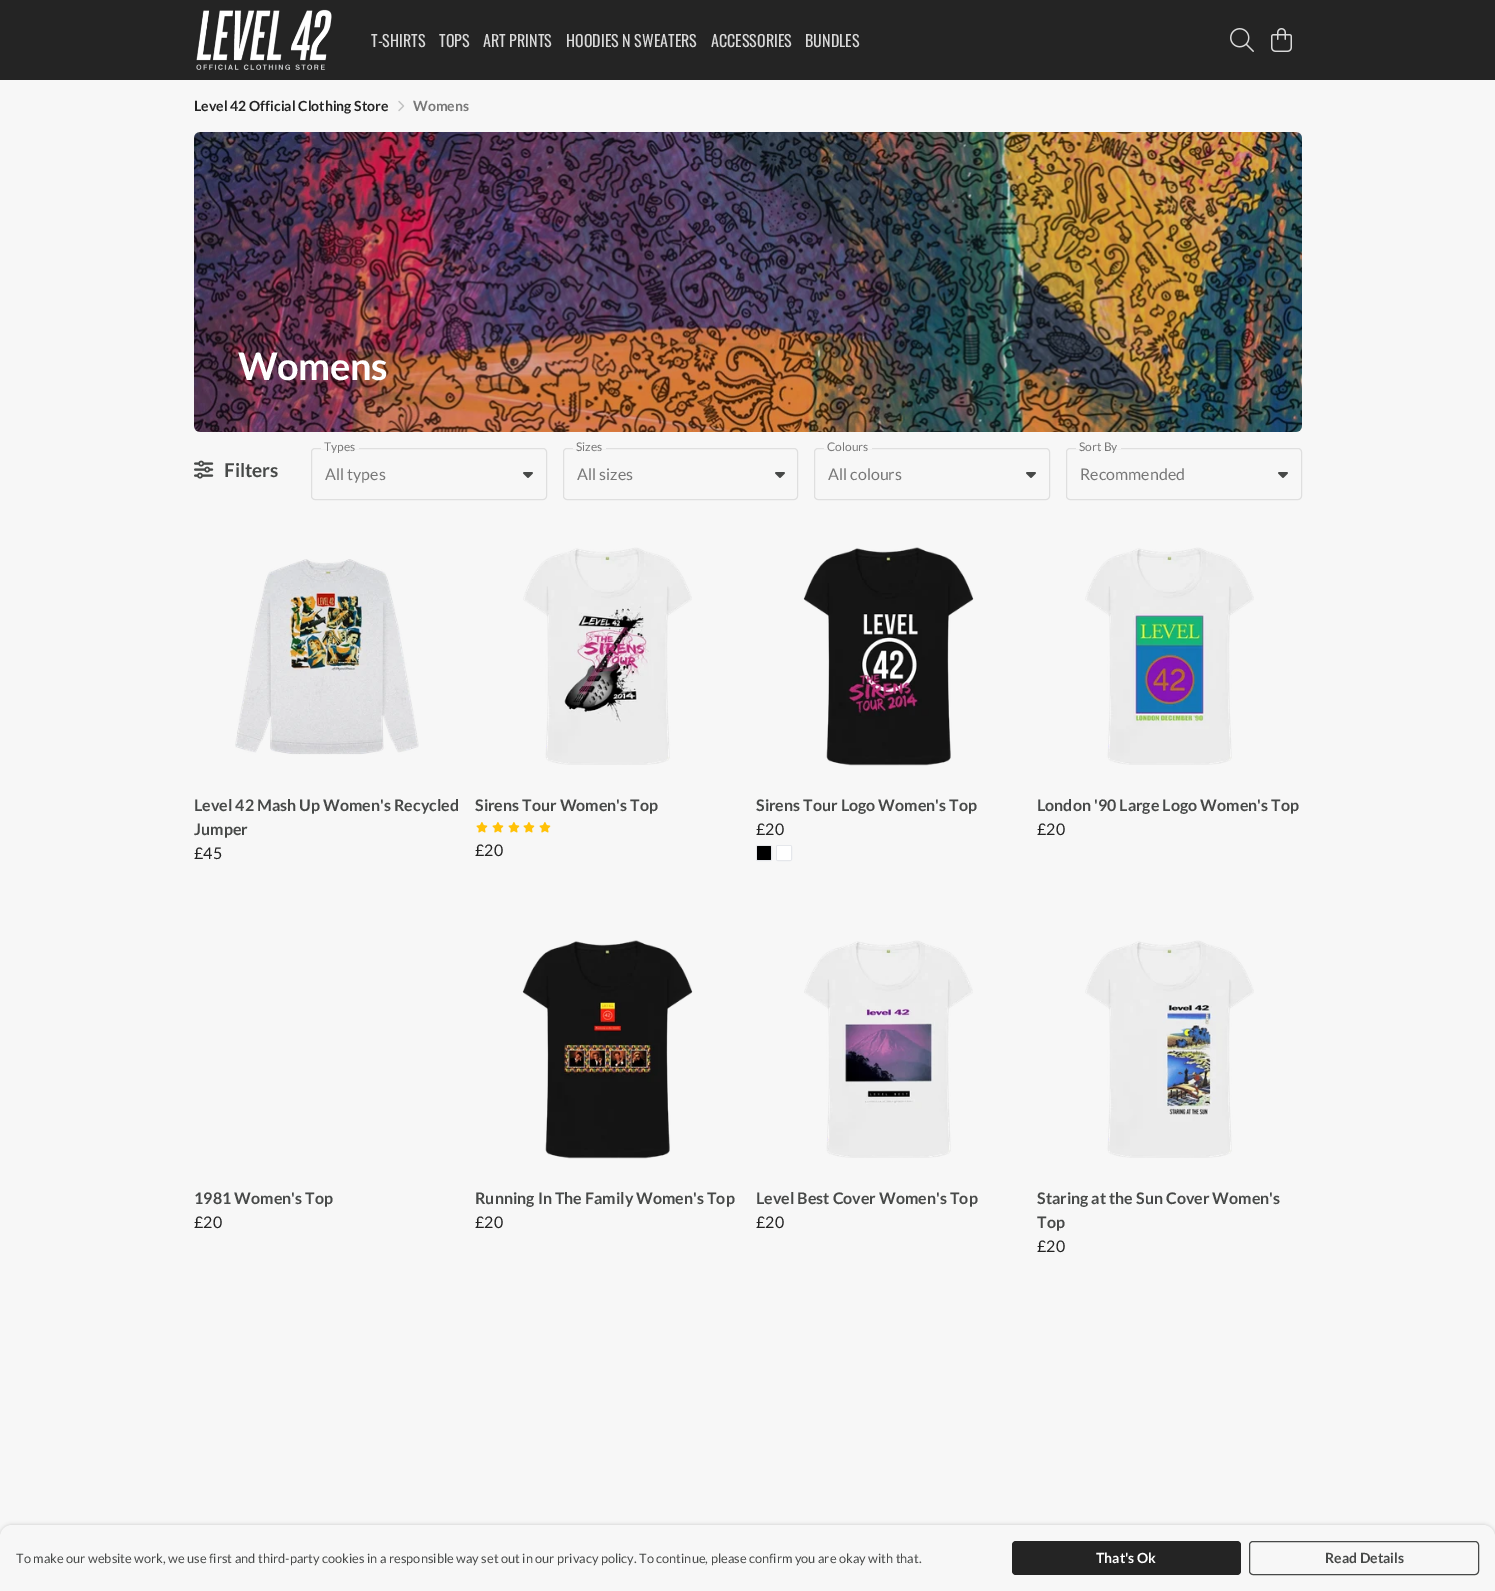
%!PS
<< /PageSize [1495 1591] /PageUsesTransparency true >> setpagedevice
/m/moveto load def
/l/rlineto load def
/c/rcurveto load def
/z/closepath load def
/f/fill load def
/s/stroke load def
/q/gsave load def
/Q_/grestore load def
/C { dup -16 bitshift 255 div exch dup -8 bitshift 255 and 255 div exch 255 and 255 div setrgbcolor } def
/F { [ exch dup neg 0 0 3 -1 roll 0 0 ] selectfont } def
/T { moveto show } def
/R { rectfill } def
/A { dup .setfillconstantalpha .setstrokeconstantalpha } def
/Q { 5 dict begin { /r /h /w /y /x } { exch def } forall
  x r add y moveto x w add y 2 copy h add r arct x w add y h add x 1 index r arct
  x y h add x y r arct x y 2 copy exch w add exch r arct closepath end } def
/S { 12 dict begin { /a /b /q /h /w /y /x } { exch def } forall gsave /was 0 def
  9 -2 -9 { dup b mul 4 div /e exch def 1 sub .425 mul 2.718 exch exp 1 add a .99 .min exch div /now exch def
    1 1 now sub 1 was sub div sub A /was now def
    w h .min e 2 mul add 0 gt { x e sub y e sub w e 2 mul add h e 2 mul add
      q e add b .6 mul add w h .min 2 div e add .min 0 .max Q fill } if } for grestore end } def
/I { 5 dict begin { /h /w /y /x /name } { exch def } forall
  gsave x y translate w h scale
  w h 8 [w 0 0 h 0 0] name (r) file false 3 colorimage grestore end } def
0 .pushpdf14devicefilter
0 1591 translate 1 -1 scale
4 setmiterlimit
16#F7F7F7 C
0 0 1495 1591 R
16#242424 C
0 0 1495 80 R
(1.rgb) 196 9 136 61 I
/Oswald-Regular 16 F
16#D9D9D9 C
(T-SHIRTS) 371 47 T
(TOPS) 439 47 T
(ART PRINTS) 483 47 T
(HOODIES N SWEATERS) 566 47 T
(ACCESSORIES) 711 47 T
(BUNDLES) 805 47 T
(2.rgb) 1230 28 24 24 I
(3.rgb) 1271 28 21 24 I
/Lato-Bold 14 F
16#242424 C
(Level 42 Official Clothing Store) 194 111 T
(4.rgb) 398 100 7 12 I
16#787878 C
(Womens) 413 111 T
(5.rgb) 194 132 1108 300 I
0.15 A
16#000000 C
194 132 1108 300 6 Q f
/Lato-Bold 38 F
1 A
16#FFFFFF C
238 380 m -.5 0 (Womens) ashow
(6.rgb) 194 460 20 19 I
/Lato-Bold 19 F
16#474948 C
(Filters) 224 477 T
16#DFDFDF C
311.5 448.5 235 51 3.5 Q s
16#F7F7F7 C
321 448 38 1 R
/Lato-Regular 12 F
16#787878 C
(Types) 324 451 T
/Lato-Regular 16 F
(All types) 325 480 T
(7.rgb) 523 472 10 6 I
16#DFDFDF C
563.5 448.5 234 51 3.5 Q s
16#F7F7F7 C
573 448 33 1 R
/Lato-Regular 12 F
16#787878 C
(Sizes) 576 451 T
/Lato-Regular 16 F
(All sizes) 577 480 T
(7.rgb) 775 472 10 6 I
16#DFDFDF C
814.5 448.5 235 51 3.5 Q s
16#F7F7F7 C
824 448 48 1 R
/Lato-Regular 12 F
16#787878 C
(Colours) 827 451 T
/Lato-Regular 16 F
(All colours) 828 480 T
(7.rgb) 1026 472 10 6 I
16#DFDFDF C
1066.5 448.5 235 51 3.5 Q s
16#F7F7F7 C
1076 448 45 1 R
/Lato-Regular 12 F
16#787878 C
(Sort By) 1079 451 T
/Lato-Regular 16 F
(Recommended) 1080 480 T
(7.rgb) 1278 472 10 6 I
(8.rgb) 235 559 184 196 I
/Lato-Bold 16 F
16#474948 C
(Level 42 Mash Up Women's Recycled) 194 811 T
(Jumper) 194 835 T
/Lato-Regular 16 F
16#242424 C
(£45) 194 859 T
(9.rgb) 523 547 169 218 I
/Lato-Bold 16 F
16#474948 C
(Sirens Tour Women's Top) 475 811 T
(10.rgb) 476 822 12 11 I
(10.rgb) 492 822 12 11 I
(10.rgb) 508 822 12 11 I
(10.rgb) 523 822 12 11 I
(10.rgb) 539 822 12 11 I
/Lato-Regular 16 F
16#242424 C
(£20) 475 856 T
(11.rgb) 803 547 171 219 I
/Lato-Bold 16 F
16#474948 C
(Sirens Tour Logo Women's Top) 756 811 T
/Lato-Regular 16 F
16#242424 C
(£20) 756 835 T
16#E5E7EB C
756.5 845.5 15 15 1.5 Q s
16#000000 C
757 846 14 14 1 Q f
16#E5E7EB C
776.5 845.5 15 15 1.5 Q s
16#FFFFFF C
777 846 14 14 1 Q f
(12.rgb) 1085 547 169 218 I
/Lato-Bold 16 F
16#474948 C
(London '90 Large Logo Women's Top) 1037 811 T
/Lato-Regular 16 F
16#242424 C
(£20) 1037 835 T
/Lato-Bold 16 F
16#474948 C
(1981 Women's Top) 194 1204 T
/Lato-Regular 16 F
16#242424 C
(£20) 194 1228 T
(13.rgb) 522 940 171 219 I
/Lato-Bold 16 F
16#474948 C
(Running In The Family Women's Top) 475 1204 T
/Lato-Regular 16 F
16#242424 C
(£20) 475 1228 T
(14.rgb) 804 940 169 218 I
/Lato-Bold 16 F
16#474948 C
(Level Best Cover Women's Top) 756 1204 T
/Lato-Regular 16 F
16#242424 C
(£20) 756 1228 T
(15.rgb) 1085 940 169 218 I
/Lato-Bold 16 F
16#474948 C
(Staring at the Sun Cover Women's) 1037 1204 T
q
1037 917 265 345 rectclip
(Top) 1037 1228 T
Q_
/Lato-Regular 16 F
16#242424 C
(£20) 1037 1252 T
16#000000 C
0 1525 1495 66 12 2 .2 S
16#F7F7F7 C
12 1525 m 1471 0 l 6.5 0 12 5.5 12 12 c 0 54 l -1495 0 l 0 -54 l 0 -6.5 5.5 -12 12 -12 c z f
/Lato-Regular 12.8 F
16#474948 C
(To make our website work, we use first and third-party cookies in a responsible way set out in our privacy policy. To continue, please confirm you are okay with that.) 16 1563 T
16#242424 C
1012 1541 229 34 4 Q f
/Lato-Bold 14 F
16#FFFFFF C
(That's Ok) 1096 1563 T
16#474948 C
1249.5 1541.5 229 33 3.5 Q s
(Read Details) 1325 1563 T
.poppdf14devicefilter showpage
